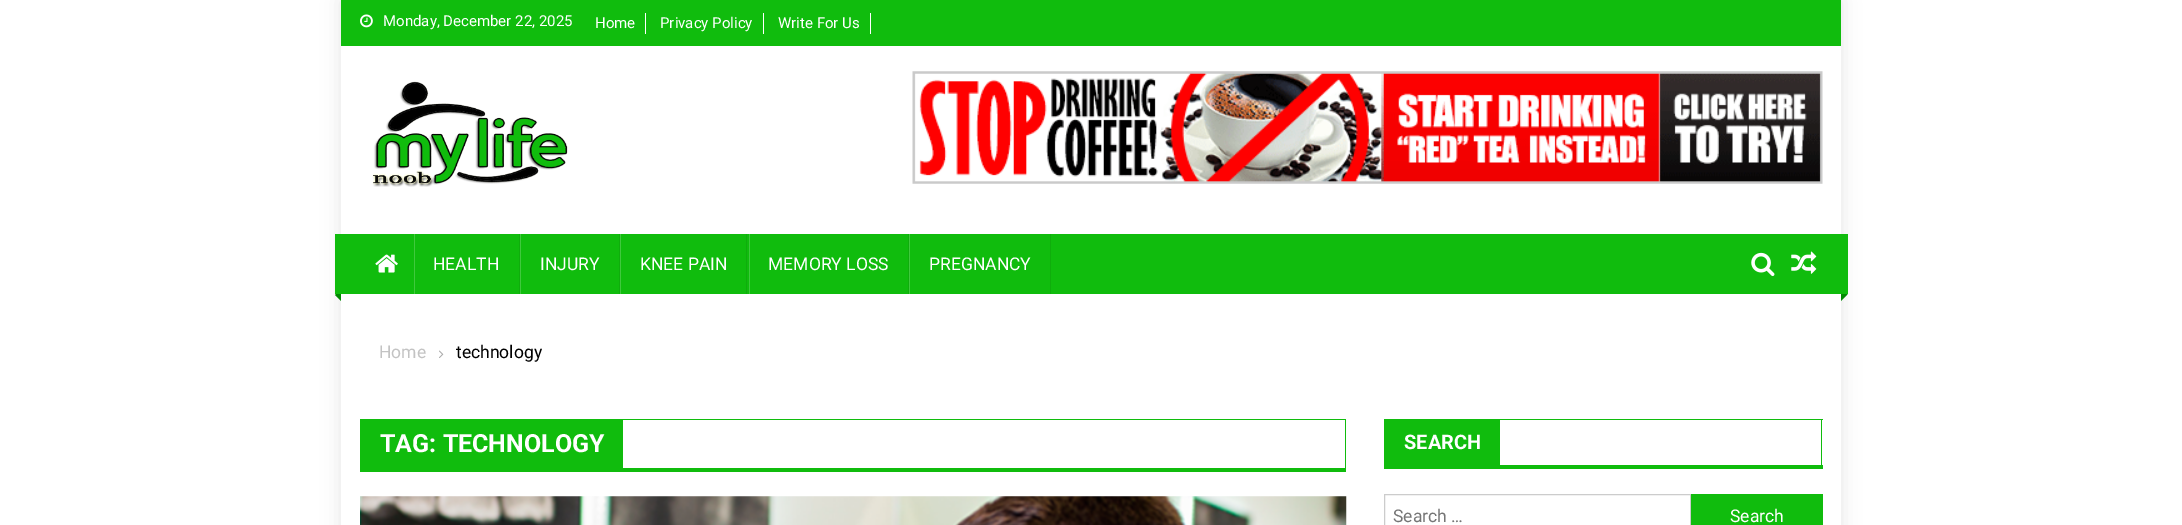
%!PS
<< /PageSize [2182 525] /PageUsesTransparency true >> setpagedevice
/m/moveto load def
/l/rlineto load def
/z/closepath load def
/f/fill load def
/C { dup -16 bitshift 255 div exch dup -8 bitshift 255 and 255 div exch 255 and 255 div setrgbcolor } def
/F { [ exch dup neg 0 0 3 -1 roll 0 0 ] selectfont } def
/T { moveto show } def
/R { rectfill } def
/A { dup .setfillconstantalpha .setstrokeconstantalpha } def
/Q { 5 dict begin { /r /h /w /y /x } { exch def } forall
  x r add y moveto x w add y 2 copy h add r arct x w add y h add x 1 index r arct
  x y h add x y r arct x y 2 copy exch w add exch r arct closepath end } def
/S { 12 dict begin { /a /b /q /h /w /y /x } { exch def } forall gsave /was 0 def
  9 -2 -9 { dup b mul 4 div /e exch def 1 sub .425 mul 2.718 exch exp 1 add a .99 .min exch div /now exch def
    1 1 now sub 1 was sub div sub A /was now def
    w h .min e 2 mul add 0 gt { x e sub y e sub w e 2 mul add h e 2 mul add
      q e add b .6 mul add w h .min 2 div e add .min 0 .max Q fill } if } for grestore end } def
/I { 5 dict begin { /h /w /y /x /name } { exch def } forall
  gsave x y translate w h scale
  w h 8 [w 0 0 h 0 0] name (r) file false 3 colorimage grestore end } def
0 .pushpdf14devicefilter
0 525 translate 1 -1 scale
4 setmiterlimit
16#FFFFFF C
0 0 2182 525 R
16#000000 C
341 0 1500 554 0 9.5 .1 S
16#FFFFFF C
341 46 1500 479 R
16#10BC0D C
341 0 1500 46 R
(1.rgb) 360 14 13 14 I
/Roboto-Regular 15 F
16#FFFFFF C
(Monday, December 22, 2025) 383 26 T
645 13 1 21 R
(Home) 595 28 T
763 13 1 21 R
(Privacy Policy) 660 28 T
870 13 1 21 R
(Write For Us) 778 28 T
(2.rgb) 372 81 196 106 I
(3.rgb) 912 71 911 113 I
16#10BC0D C
341 234 1500 60 R
16#008A00 C
341 289 m 0 12 l -6 -6 l z f
16#10BC0D C
335 234 6 60 R
(4.rgb) 375 254 23 19 I
16#0FAD0C C
519 234 1 60 R
16#40C93D C
414 234 1 60 R
/Roboto-Regular 17.5 F
16#FFFFFF C
(HEALTH) 433 270 T
16#0FAD0C C
619 234 1 60 R
16#40C93D C
520 234 1 60 R
16#FFFFFF C
(INJURY) 540 270 T
16#0FAD0C C
746 234 1 60 R
16#40C93D C
620 234 1 60 R
16#FFFFFF C
(KNEE PAIN) 640 270 T
16#0FAD0C C
908 234 1 60 R
16#40C93D C
749 234 1 60 R
16#FFFFFF C
(MEMORY LOSS) 768 270 T
16#0FAD0C C
1050 234 1 60 R
16#40C93D C
909 234 1 60 R
16#FFFFFF C
(PREGNANCY) 929 270 T
(5.rgb) 1751 252 24 25 I
(6.rgb) 1791 251 26 23 I
16#008A00 C
1841 301 m 0 -12.5 l 6.5 6 l z f
16#10BC0D C
1841 234 7 60 R
16#C3C3C3 C
(Home) 379 358 T
(7.rgb) 439 350 5 8 I
16#000000 C
(technology) 456 358 T
16#10BC0D C
360 419 986 1 R
1345 419 1 52 R
360 468 986 4 R
360 419 1 52 R
361 420 262 48 R
/Roboto-Bold 25 F
16#FFFFFF C
(TAG: TECHNOLOGY) 380 452 T
(8.rgb) 360 496 987 29 I
16#10BC0D C
1384 419 439 1 R
1821 419 1 50 R
1384 465 439 4 R
1384 419 1 50 R
1385 420 115 45 R
/Roboto-Bold 20 F
16#FFFFFF C
(SEARCH) 1404 449 T
16#CCCCCC C
1384.5 494.5 306 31 rectstroke
/Roboto-Regular 17.5 F
16#757575 C
(Search …) 1393 522 T
16#10BC0D C
1691 494 132 31 R
16#FFFFFF C
(Search) 1730 522 T
.poppdf14devicefilter showpage
